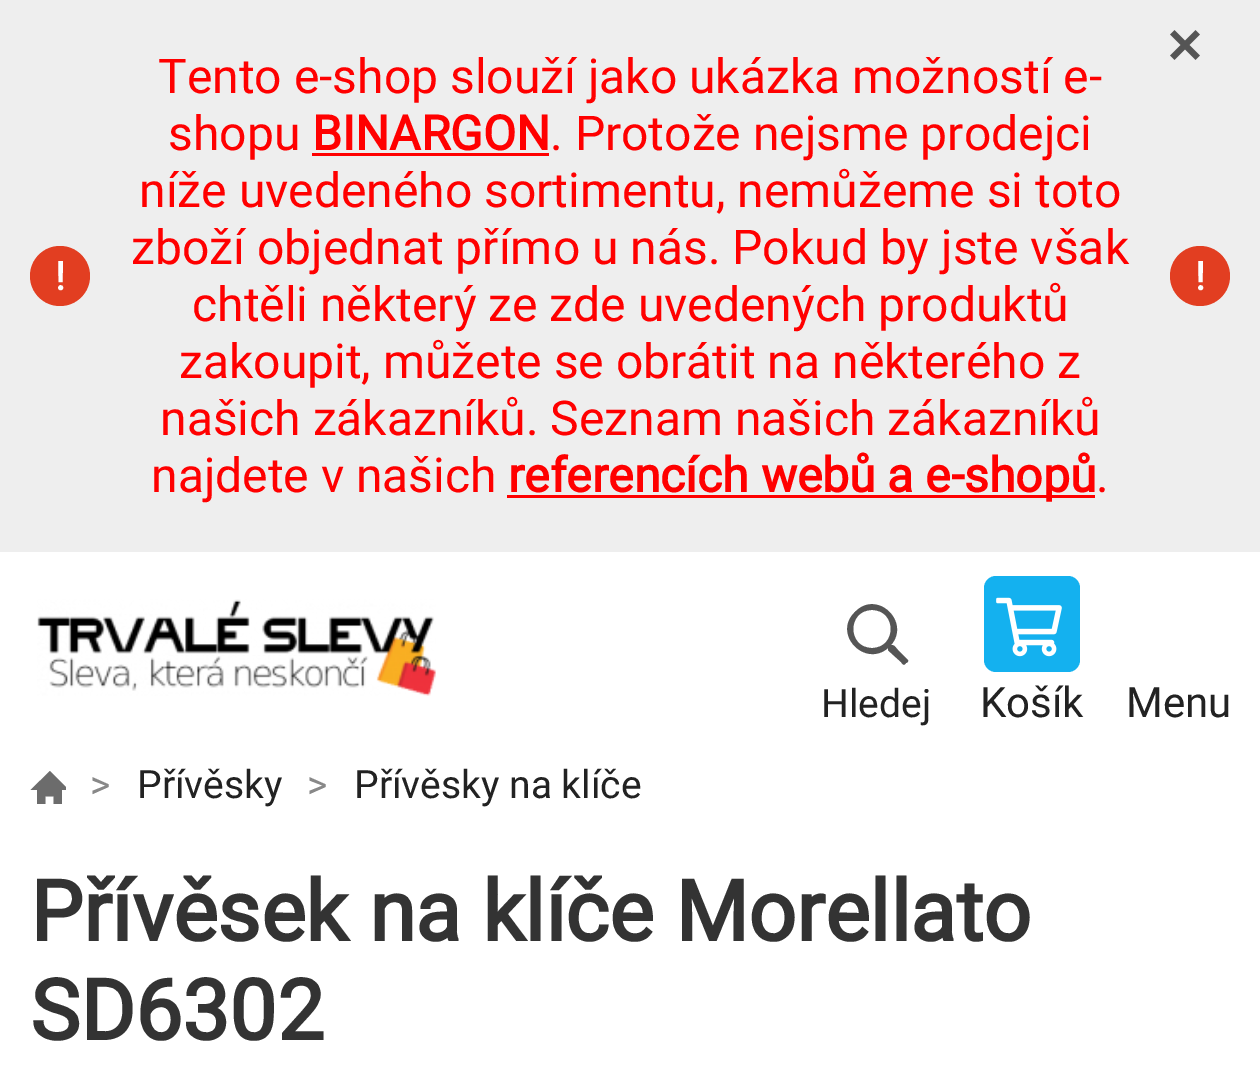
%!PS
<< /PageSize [1260 1091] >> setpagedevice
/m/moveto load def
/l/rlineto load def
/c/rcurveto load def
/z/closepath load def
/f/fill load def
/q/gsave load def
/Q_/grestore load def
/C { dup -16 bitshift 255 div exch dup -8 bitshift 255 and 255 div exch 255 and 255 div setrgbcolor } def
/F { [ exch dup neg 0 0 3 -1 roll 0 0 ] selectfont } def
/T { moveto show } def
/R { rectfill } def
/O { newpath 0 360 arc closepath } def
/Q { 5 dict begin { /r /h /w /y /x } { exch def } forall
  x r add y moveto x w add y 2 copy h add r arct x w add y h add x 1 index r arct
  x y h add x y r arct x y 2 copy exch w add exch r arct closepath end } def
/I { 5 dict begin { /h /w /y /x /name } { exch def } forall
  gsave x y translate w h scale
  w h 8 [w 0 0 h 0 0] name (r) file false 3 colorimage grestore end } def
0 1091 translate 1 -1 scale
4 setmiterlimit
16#FFFFFF C
0 0 1260 1091 R
16#EEEEEE C
0 0 1260 552 R
(1.rgb) 1170 30 30 30 I
16#E23E21 C
60 276 30 O f
/Roboto-Bold 39 F
16#FFFFFF C
(!) 55 290 T
/Roboto-Regular 48 F
16#FF0000 C
(Tento e-shop slouží jako ukázka možností e-) 158 93 T
(shopu) 168 150 T
/Roboto-Bold 48 F
(BINARGON) 312 150 T
/Roboto-Regular 48 F
(. Protože nejsme prodejci) 550 150 T
312 153 237 3 R
(níže uvedeného sortimentu, nemůžeme si toto) 139 207 T
(zboží objednat přímo u nás. Pokud by jste však) 131 264 T
(chtěli některý ze zde uvedených produktů) 192 321 T
(zakoupit, můžete se obrátit na některého z) 179 378 T
(našich zákazníků. Seznam našich zákazníků) 160 435 T
(najdete v našich) 151 492 T
507 495 588 3 R
/Roboto-Bold 48 F
(referencích webů a e-shopů) 508 492 T
/Roboto-Regular 48 F
(.) 1096 492 T
16#E23E21 C
1200 276 30 O f
/Roboto-Bold 39 F
16#FFFFFF C
(!) 1195 290 T
(2.rgb) 37 599 399 97 I
16#555555 C
908 660 m -10 -10 l -3 -3 -3 -5 -7 -5 c 20 -23 -14 -56 -36 -33 c -23 22 10 56 33 36 c 0 3 0 2 3 5 c 10 9 l 2 3 3 4 5 1 c 1 0 3 -2 2 -3 c z 872 648 m -25 0 -25 -38 0 -38 c 25 0 25 38 0 38 c z eofill
/Roboto-Regular 39 F
16#222222 C
(Hledej) 821 717 T
16#14B1EF C
984 576 96 96 12 Q f
(3.rgb) 996 597 66 60 I
/Roboto-Regular 42 F
16#222222 C
(Košík) 980 717 T
(Menu) 1126 717 T
q
30 771 36 33 rectclip
16#6C6C6C C
50 771 m -19.5 19 l 6.5 0 l 0 15 l 8.5 0 l 0 -8.5 l 8 0 l 0 8.5 l 8.5 0 l 0 -15 l 7 0 l z f
Q_
/Roboto-Regular 39 F
16#888888 C
(>) 90 798 T
16#222222 C
(Přívěsky) 137 798 T
16#888888 C
(>) 307 798 T
16#222222 C
(Přívěsky na klíče) 354 798 T
/Roboto-Bold 84 F
16#333333 C
(Přívěsek na klíče Morellato) 30 941 T
(SD6302) 30 1040 T
showpage
